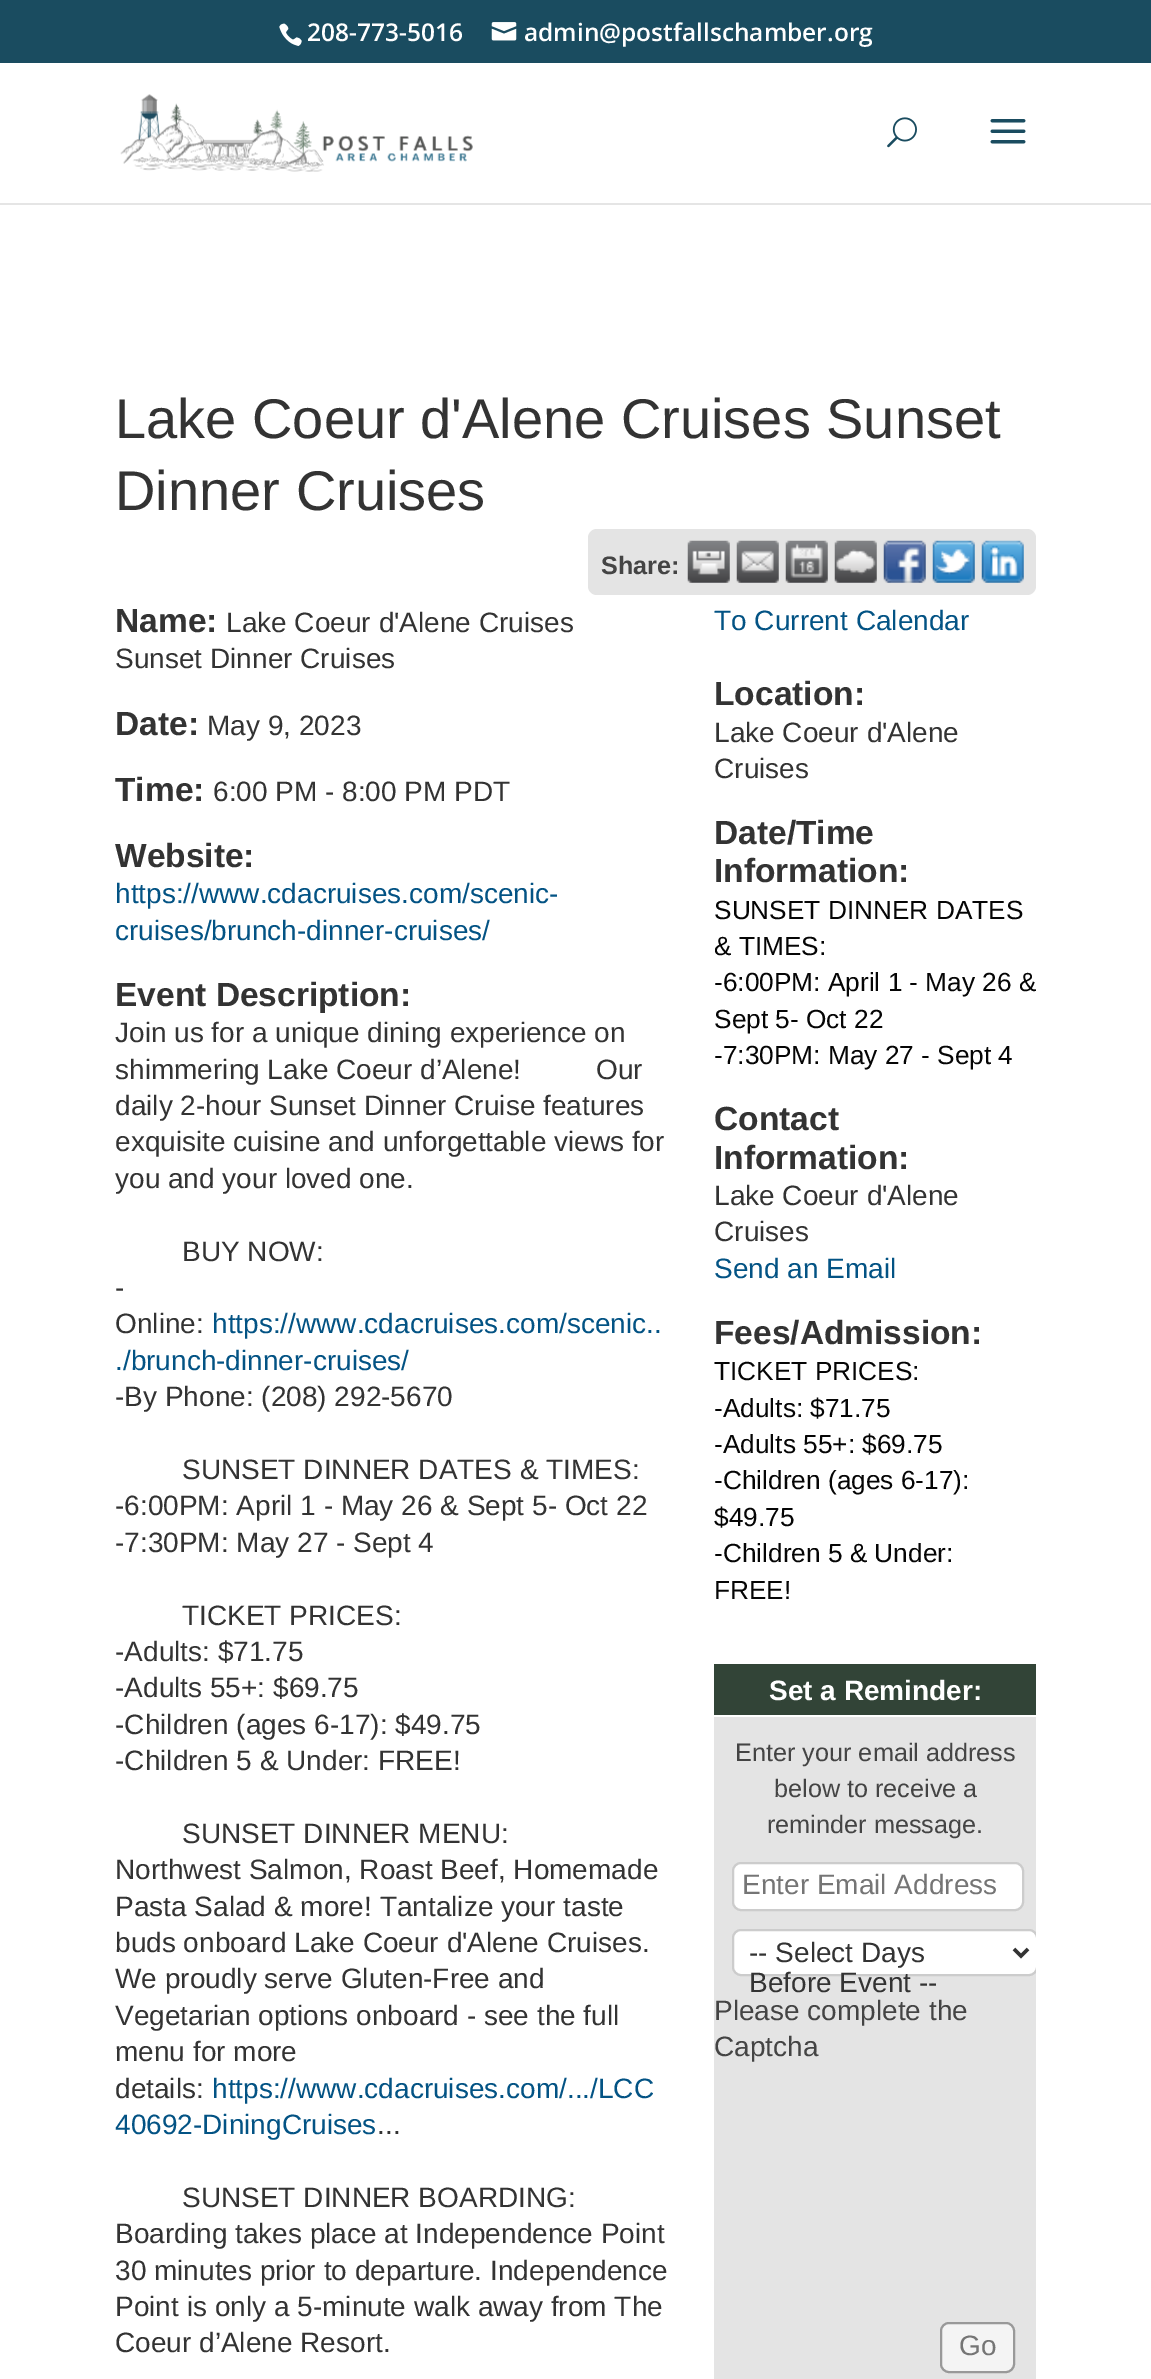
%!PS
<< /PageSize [1151 2379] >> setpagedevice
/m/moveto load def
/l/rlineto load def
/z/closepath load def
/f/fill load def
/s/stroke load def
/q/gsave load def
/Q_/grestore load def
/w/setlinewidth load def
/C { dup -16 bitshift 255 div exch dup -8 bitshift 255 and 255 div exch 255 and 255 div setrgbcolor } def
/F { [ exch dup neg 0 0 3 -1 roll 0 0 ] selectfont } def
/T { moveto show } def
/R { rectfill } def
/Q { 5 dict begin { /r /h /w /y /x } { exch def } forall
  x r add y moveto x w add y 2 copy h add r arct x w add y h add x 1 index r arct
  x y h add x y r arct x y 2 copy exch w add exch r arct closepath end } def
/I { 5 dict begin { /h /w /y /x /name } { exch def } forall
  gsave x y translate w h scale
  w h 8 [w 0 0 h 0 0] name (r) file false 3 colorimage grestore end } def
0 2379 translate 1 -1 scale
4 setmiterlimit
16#FFFFFF C
0 0 1151 2379 R
16#1A4C60 C
0 0 1151 63 R
(1.rgb) 279 23 23 23 I
/OpenSans-SemiBold 24.5 F
16#FFFFFF C
(208-773-5016) 307 41 T
(2.rgb) 491 22 26 19 I
(admin@postfallschamber.org) 524 41 T
16#E5E5E5 C
0 203 m 0 2 l 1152 0 l 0 -140 l 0 138 l z f
(3.rgb) 120 94 353 78 I
(4.rgb) 887 117 30 31 I
(5.rgb) 990 119 36 25 I
/LiberationSans-Regular 56 F
16#333333 C
(Lake Coeur d'Alene Cruises Sunset) 115 438 T
(Dinner Cruises) 115 510 T
16#E4E4E4 C
588 529 448 66 9 Q f
/LiberationSans-Bold 25.25 F
16#444444 C
(Share:) 601 574 T
(6.rgb) 687 540 43 43 I
(7.rgb) 736 540 43 43 I
(8.rgb) 785 540 43 43 I
(9.rgb) 834 540 43 43 I
(10.rgb) 883 540 43 43 I
(11.rgb) 932 540 43 43 I
(12.rgb) 981 540 43 43 I
/LiberationSans-Bold 33.5 F
16#333333 C
(Name:) 115 632 T
/LiberationSans-Regular 28 F
(Lake Coeur d'Alene Cruises) 226 632 T
(Sunset Dinner Cruises) 115 668 T
/LiberationSans-Bold 33.5 F
(Date:) 115 735 T
/LiberationSans-Regular 28 F
(May 9, 2023) 207 735 T
/LiberationSans-Bold 33.5 F
(Time:) 115 801 T
/LiberationSans-Regular 28 F
(6:00 PM - 8:00 PM PDT) 213 801 T
/LiberationSans-Bold 33.5 F
(Website:) 115 867 T
/LiberationSans-Regular 28 F
16#035384 C
(https://www.cdacruises.com/scenic-) 115 903 T
(cruises/brunch-dinner-cruises/) 115 940 T
/LiberationSans-Bold 33.5 F
16#333333 C
(Event Description:) 115 1006 T
/LiberationSans-Regular 28 F
(Join us for a unique dining experience on) 115 1042 T
(shimmering Lake Coeur d’Alene!) 115 1079 T
(Our) 596 1079 T
(daily 2-hour Sunset Dinner Cruise features) 115 1115 T
(exquisite cuisine and unforgettable views for) 115 1151 T
(you and your loved one.) 115 1188 T
(BUY NOW:) 182 1261 T
(-) 115 1297 T
(Online:) 115 1333 T
16#035384 C
(https://www.cdacruises.com/scenic..) 212 1333 T
(./brunch-dinner-cruises/) 115 1370 T
16#333333 C
(-By Phone: \(208\) 292-5670) 115 1406 T
(SUNSET DINNER DATES & TIMES:) 182 1479 T
(-6:00PM: April 1 - May 26 & Sept 5- Oct 22) 115 1515 T
(-7:30PM: May 27 - Sept 4) 115 1552 T
(TICKET PRICES:) 182 1625 T
(-Adults: $71.75) 115 1661 T
(-Adults 55+: $69.75) 115 1697 T
(-Children \(ages 6-17\): $49.75) 115 1734 T
(-Children 5 & Under: FREE!) 115 1770 T
(SUNSET DINNER MENU:) 182 1843 T
(Northwest Salmon, Roast Beef, Homemade) 115 1879 T
(Pasta Salad & more! Tantalize your taste) 115 1916 T
(buds onboard Lake Coeur d'Alene Cruises.) 115 1952 T
(We proudly serve Gluten-Free and) 115 1988 T
(Vegetarian options onboard - see the full) 115 2025 T
(menu for more) 115 2061 T
(details:) 115 2098 T
16#035384 C
(https://www.cdacruises.com/.../LCC) 212 2098 T
(40692-DiningCruises) 115 2134 T
16#333333 C
(...) 377 2134 T
(SUNSET DINNER BOARDING:) 182 2207 T
(Boarding takes place at Independence Point) 115 2243 T
(30 minutes prior to departure. Independence) 115 2280 T
(Point is only a 5-minute walk away from The) 115 2316 T
(Coeur d’Alene Resort.) 115 2352 T
16#035384 C
(To Current Calendar) 714 630 T
/LiberationSans-Bold 33.5 F
16#333333 C
(Location:) 714 705 T
/LiberationSans-Regular 28 F
(Lake Coeur d'Alene) 714 742 T
(Cruises) 714 778 T
/LiberationSans-Bold 33.5 F
(Date/Time) 714 844 T
(Information:) 714 882 T
/LiberationSans-Regular 26.25 F
16#050505 C
(SUNSET DINNER DATES) 714 919 T
(& TIMES:) 714 955 T
(-6:00PM: April 1 - May 26 &) 714 991 T
(Sept 5- Oct 22) 714 1028 T
(-7:30PM: May 27 - Sept 4) 714 1064 T
/LiberationSans-Bold 33.5 F
16#333333 C
(Contact) 714 1130 T
(Information:) 714 1169 T
/LiberationSans-Regular 28 F
(Lake Coeur d'Alene) 714 1205 T
(Cruises) 714 1241 T
16#035384 C
(Send an Email) 714 1278 T
/LiberationSans-Bold 33.5 F
16#333333 C
(Fees/Admission:) 714 1344 T
/LiberationSans-Regular 26.25 F
16#050505 C
(TICKET PRICES:) 714 1380 T
(-Adults: $71.75) 714 1417 T
(-Adults 55+: $69.75) 714 1453 T
(-Children \(ages 6-17\):) 714 1489 T
($49.75) 714 1526 T
(-Children 5 & Under:) 714 1562 T
(FREE!) 714 1599 T
16#E4E4E4 C
714 1717 322 662 R
16#324437 C
714 1664 322 51 R
/LiberationSans-Bold 28 F
16#FFFFFF C
(Set a Reminder:) 769 1700 T
/LiberationSans-Regular 25.25 F
16#444444 C
(Enter your email address) 735 1761 T
(below to receive a) 774 1797 T
(reminder message.) 767 1833 T
16#FFFFFF C
733 1863 290 47 8 Q q f Q_
16#CCCCCC C
2 w
s
/LiberationSans-Regular 28 F
16#757575 C
(Enter Email Address) 742 1894 T
q
714 1717 322 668 rectclip
16#FFFFFF C
733 1930 304 45 8 Q q f Q_
16#CCCCCC C
s
Q_
16#333333 C
3.5 w
1014 1949 m 7 7 l 7 -7 l s
(-- Select Days) 749 1962 T
(Before Event --) 749 1992 T
16#444444 C
(Please complete the) 714 2020 T
(Captcha) 714 2056 T
16#F4F4F4 C
941 2323 73 49 8 Q q f Q_
16#999999 C
2 w
s
16#757575 C
(Go) 959 2355 T
showpage
